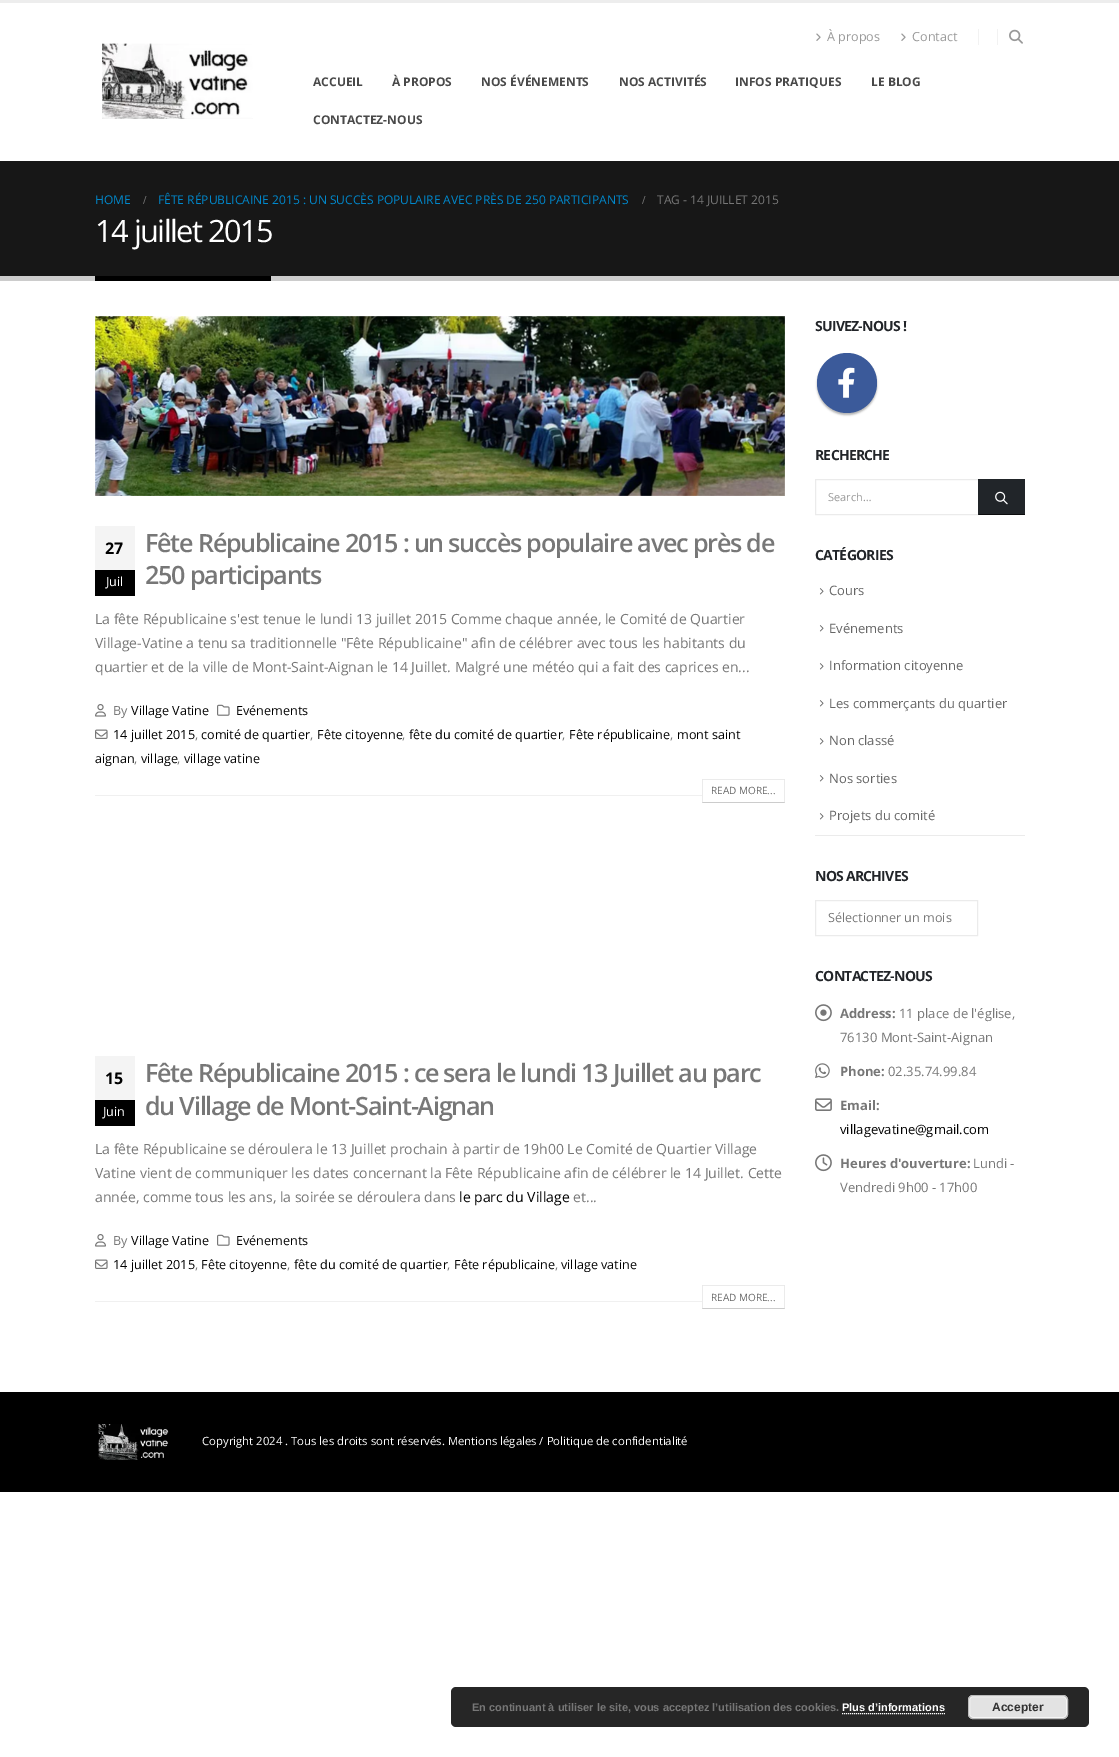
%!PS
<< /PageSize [1119 1757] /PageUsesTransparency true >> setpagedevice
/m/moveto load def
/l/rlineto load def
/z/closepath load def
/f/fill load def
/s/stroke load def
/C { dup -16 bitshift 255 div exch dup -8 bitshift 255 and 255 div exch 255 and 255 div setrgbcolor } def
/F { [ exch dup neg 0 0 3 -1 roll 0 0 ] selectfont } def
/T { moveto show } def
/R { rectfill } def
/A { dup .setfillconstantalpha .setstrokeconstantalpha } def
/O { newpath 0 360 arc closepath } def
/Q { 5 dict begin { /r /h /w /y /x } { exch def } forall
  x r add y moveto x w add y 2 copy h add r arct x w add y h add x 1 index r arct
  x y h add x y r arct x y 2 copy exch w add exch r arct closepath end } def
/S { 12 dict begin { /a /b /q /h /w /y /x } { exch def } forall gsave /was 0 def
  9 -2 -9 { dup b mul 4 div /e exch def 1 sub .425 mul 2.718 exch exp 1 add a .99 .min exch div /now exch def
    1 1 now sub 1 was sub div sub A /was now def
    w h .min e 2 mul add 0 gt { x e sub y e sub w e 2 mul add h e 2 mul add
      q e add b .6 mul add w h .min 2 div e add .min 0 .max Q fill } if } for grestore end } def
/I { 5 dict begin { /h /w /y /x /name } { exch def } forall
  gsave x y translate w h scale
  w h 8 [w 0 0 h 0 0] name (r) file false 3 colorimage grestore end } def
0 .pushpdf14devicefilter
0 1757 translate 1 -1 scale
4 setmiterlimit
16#FFFFFF C
0 0 1119 1757 R
16#EDEDED C
0 0 1119 3 R
(1.rgb) 102 43 151 76 I
(2.rgb) 816 33 5 8 I
/OpenSans-Regular 12.6 F
16#999999 C
(À propos) 827 41 T
(2.rgb) 901 33 5 8 I
(Contact) 912 41 T
16#F2F2F2 C
978 29 1 16 R
997 29 1 16 R
(3.rgb) 1009 29 14 15 I
/OpenSans-Bold 12 F
16#494949 C
(ACCUEIL) 313 86 T
(À PROPOS) 392 86 T
(NOS ÉVÉNEMENTS) 481 86 T
(NOS ACTIVITÉS) 619 86 T
(INFOS PRATIQUES) 735 86 T
(LE BLOG) 871 86 T
(CONTACTEZ-NOUS) 313 124 T
16#171717 C
0 161 1119 115 R
16#CCCCCC C
0 276 1119 5 R
/OpenSans-Regular 12 F
16#0088CC C
(HOME) 95 204 T
/LiberationSerif-Bold 12 F
16#777777 C
(/) 143 204 T
/OpenSans-Regular 12 F
16#0088CC C
(FÊTE RÉPUBLICAINE 2015 : UN SUCCÈS POPULAIRE AVEC PRÈS DE 250 PARTICIPANTS) 158 204 T
/LiberationSerif-Bold 12 F
16#777777 C
(/) 642 204 T
/OpenSans-Regular 12 F
(TAG - 14 JUILLET 2015) 657 204 T
/OpenSans-Regular 30.75 F
16#FFFFFF C
95 242 m -1.5 0 (14 juillet 2015) ashow
16#000000 C
95 276 176 5 R
16#F0F0F0 C
95 795 607 1 R
(4.rgb) 95 316 690 180 I
/OpenSans-SemiBold 25.2 F
16#777777 C
145 552 m -1.25 0 (Fête Républicaine 2015 : un succès populaire avec près de) ashow
145 584 m -1.25 0 (250 participants) ashow
/OpenSans-Regular 14 F
(La fête Républicaine s'est tenue le lundi 13 juillet 2015 Comme chaque année, le Comité de Quartier) 95 624 T
(Village-Vatine a tenu sa traditionnelle "Fête Républicaine" afin de célébrer avec tous les habitants du) 95 648 T
(quartier et de la ville de Mont-Saint-Aignan le 14 Juillet. Malgré une météo qui a fait des caprices en...) 95 672 T
16#F4F4F4 C
95 526 40 44 R
/OpenSans-Bold 16 F
16#000000 C
(27) 105 554 T
95 570 40 26 R
/OpenSans-Regular 12.6 F
16#FFFFFF C
(Juil) 106 586 T
(5.rgb) 95 704 11 13 I
16#777777 C
(By) 113 715 T
16#000000 C
(Village Vatine) 131 715 T
(6.rgb) 217 704 13 12 I
(Evénements) 236 715 T
(7.rgb) 95 729 13 10 I
(14 juillet 2015) 113 739 T
16#777777 C
(,) 195 739 T
16#000000 C
(comité de quartier) 201 739 T
16#777777 C
(,) 310 739 T
16#000000 C
(Fête citoyenne) 317 739 T
16#777777 C
(,) 402 739 T
16#000000 C
(fête du comité de quartier) 409 739 T
16#777777 C
(,) 562 739 T
16#000000 C
(Fête républicaine) 569 739 T
16#777777 C
(,) 670 739 T
16#000000 C
(mont saint) 677 739 T
(aignan) 95 763 T
16#777777 C
(,) 134 763 T
16#000000 C
(village) 141 763 T
16#777777 C
(,) 177 763 T
16#000000 C
(village vatine) 184 763 T
16#EBEBEB C
702 779 m 83 0 l -1 1 l -81 0 l z f
0.08 A
16#000000 C
785 779 m 0 24 l -1 -1 l 0 -22 l z f
0.2 A
785 803 m -83 0 l 1 -1 l 81 0 l z f
0.08 A
702 803 m 0 -24 l 1 1 l 0 22 l z f
/OpenSans-Regular 10 F
1 A
16#666666 C
(READ MORE...) 711 794 T
16#F0F0F0 C
95 1301 607 1 R
/OpenSans-SemiBold 25.2 F
16#777777 C
145 1082 m -1.25 0 (Fête Républicaine 2015 : ce sera le lundi 13 Juillet au parc) ashow
145 1115 m -1.25 0 (du Village de Mont-Saint-Aignan) ashow
/OpenSans-Regular 14 F
(La fête Républicaine se déroulera le 13 Juillet prochain à partir de 19h00 Le Comité de Quartier Village) 95 1154 T
(Vatine vient de communiquer les dates concernant la Fête Républicaine afin de célébrer le 14 Juillet. Cette) 95 1178 T
(année, comme tous les ans, la soirée se déroulera dans) 95 1202 T
16#000000 C
(le parc du Village) 459 1202 T
16#777777 C
(et...) 573 1202 T
16#F4F4F4 C
95 1056 40 44 R
/OpenSans-Bold 16 F
16#000000 C
(15) 105 1084 T
95 1100 40 26 R
/OpenSans-Regular 12.6 F
16#FFFFFF C
(Juin) 103 1116 T
(5.rgb) 95 1234 11 13 I
16#777777 C
(By) 113 1245 T
16#000000 C
(Village Vatine) 131 1245 T
(6.rgb) 217 1234 13 12 I
(Evénements) 236 1245 T
(7.rgb) 95 1259 13 10 I
(14 juillet 2015) 113 1269 T
16#777777 C
(,) 195 1269 T
16#000000 C
(Fête citoyenne) 201 1269 T
16#777777 C
(,) 287 1269 T
16#000000 C
(fête du comité de quartier) 294 1269 T
16#777777 C
(,) 447 1269 T
16#000000 C
(Fête républicaine) 454 1269 T
16#777777 C
(,) 555 1269 T
16#000000 C
(village vatine) 561 1269 T
16#EBEBEB C
702 1285 m 83 0 l -1 1 l -81 0 l z f
0.08 A
16#000000 C
785 1285 m 0 24 l -1 -1 l 0 -22 l z f
0.2 A
785 1309 m -83 0 l 1 -1 l 81 0 l z f
0.08 A
702 1309 m 0 -24 l 1 1 l 0 22 l z f
/OpenSans-Regular 10 F
1 A
16#666666 C
(READ MORE...) 711 1301 T
/OpenSans-Bold 14 F
16#222529 C
815 331 m -.75 0 (SUIVEZ-NOUS !) ashow
16#000000 C
817 355 60 60 30 1 .3 S
16#3B5A9A C
847 383 30 O f
(8.rgb) 838 367 17 31 I
16#222529 C
815 460 m -.75 0 (RECHERCHE) ashow
16#EBEBEB C
815.5 479.5 163 35 rectstroke
/OpenSans-Regular 11 F
16#999999 C
(Search…) 828 501 T
16#212529 C
979 479 46 35 R
16#0B0C0D C
978 514 47 1 R
16#212529 C
978 479 1 36 R
(9.rgb) 995 491 13 14 I
/OpenSans-Bold 14 F
16#222529 C
815 560 m -.75 0 (CATÉGORIES) ashow
16#EBEBEB C
815 835 210 1 R
(10.rgb) 819 588 5 7 I
/OpenSans-Regular 13 F
16#666666 C
(Cours) 829 595 T
(10.rgb) 819 625 5 7 I
(Evénements) 829 633 T
(10.rgb) 819 663 5 7 I
(Information citoyenne) 829 670 T
(10.rgb) 819 700 5 7 I
(Les commerçants du quartier) 829 708 T
(10.rgb) 819 738 5 7 I
(Non classé) 829 745 T
(10.rgb) 819 775 5 7 I
(Nos sorties) 829 783 T
(10.rgb) 819 813 5 7 I
(Projets du comité) 829 820 T
/OpenSans-Bold 14 F
16#222529 C
815 881 m -.75 0 (NOS ARCHIVES) ashow
16#EBEBEB C
815.5 900.5 162 35 rectstroke
/OpenSans-Regular 12.6 F
16#777777 C
(Sélectionner un mois) 828 922 T
/OpenSans-Bold 14 F
16#222529 C
815 981 m -.75 0 (CONTACTEZ-NOUS) ashow
(11.rgb) 815 1004 17 18 I
/OpenSans-Bold 13 F
16#777777 C
(Address:) 840 1018 T
/OpenSans-Regular 13 F
(11 place de l'église,) 899 1018 T
(76130 Mont-Saint-Aignan) 840 1042 T
(12.rgb) 815 1063 15 15 I
/OpenSans-Bold 13 F
(Phone:) 840 1076 T
/OpenSans-Regular 13 F
(02.35.74.99.84) 888 1076 T
(13.rgb) 815 1098 17 13 I
/OpenSans-Bold 13 F
(Email:) 840 1110 T
/OpenSans-Regular 13 F
16#000000 C
(villagevatine@gmail.com) 840 1134 T
(14.rgb) 815 1154 17 18 I
/OpenSans-Bold 13 F
16#777777 C
(Heures d'ouverture:) 840 1168 T
/OpenSans-Regular 13 F
(Lundi -) 973 1168 T
(Vendredi 9h00 - 17h00) 840 1192 T
16#000000 C
0 1392 1119 100 R
(15.rgb) 98 1424 71 36 I
/OpenSans-Regular 11.35 F
16#FFFFFF C
(Copyright 2024 . Tous les droits sont réservés. Mentions légales / Politique de confidentialité) 202 1445 T
16#262626 C
451 1687 638 40 5 Q f
/LiberationSans-Bold 11 F
16#777777 C
(En continuant à utiliser le site, vous acceptez l’utilisation des cookies.) 472 1711 T
16#FFFFFF C
(Plus d’informations) 842 1711 T
[1 1] 0 setdash
842 1713.5 m 103 0 l s
16#E3E3E3 C
968 1695 100 24 5 Q f
16#F6F6F6 C
[] 0 setdash
969.5 1696.5 97 21 3.5 Q s
16#BBBBBB C
968.5 1695.5 99 23 4.5 Q s
/LiberationSans-Bold 12 F
16#333333 C
(Accepter) 992 1711 T
.poppdf14devicefilter showpage
